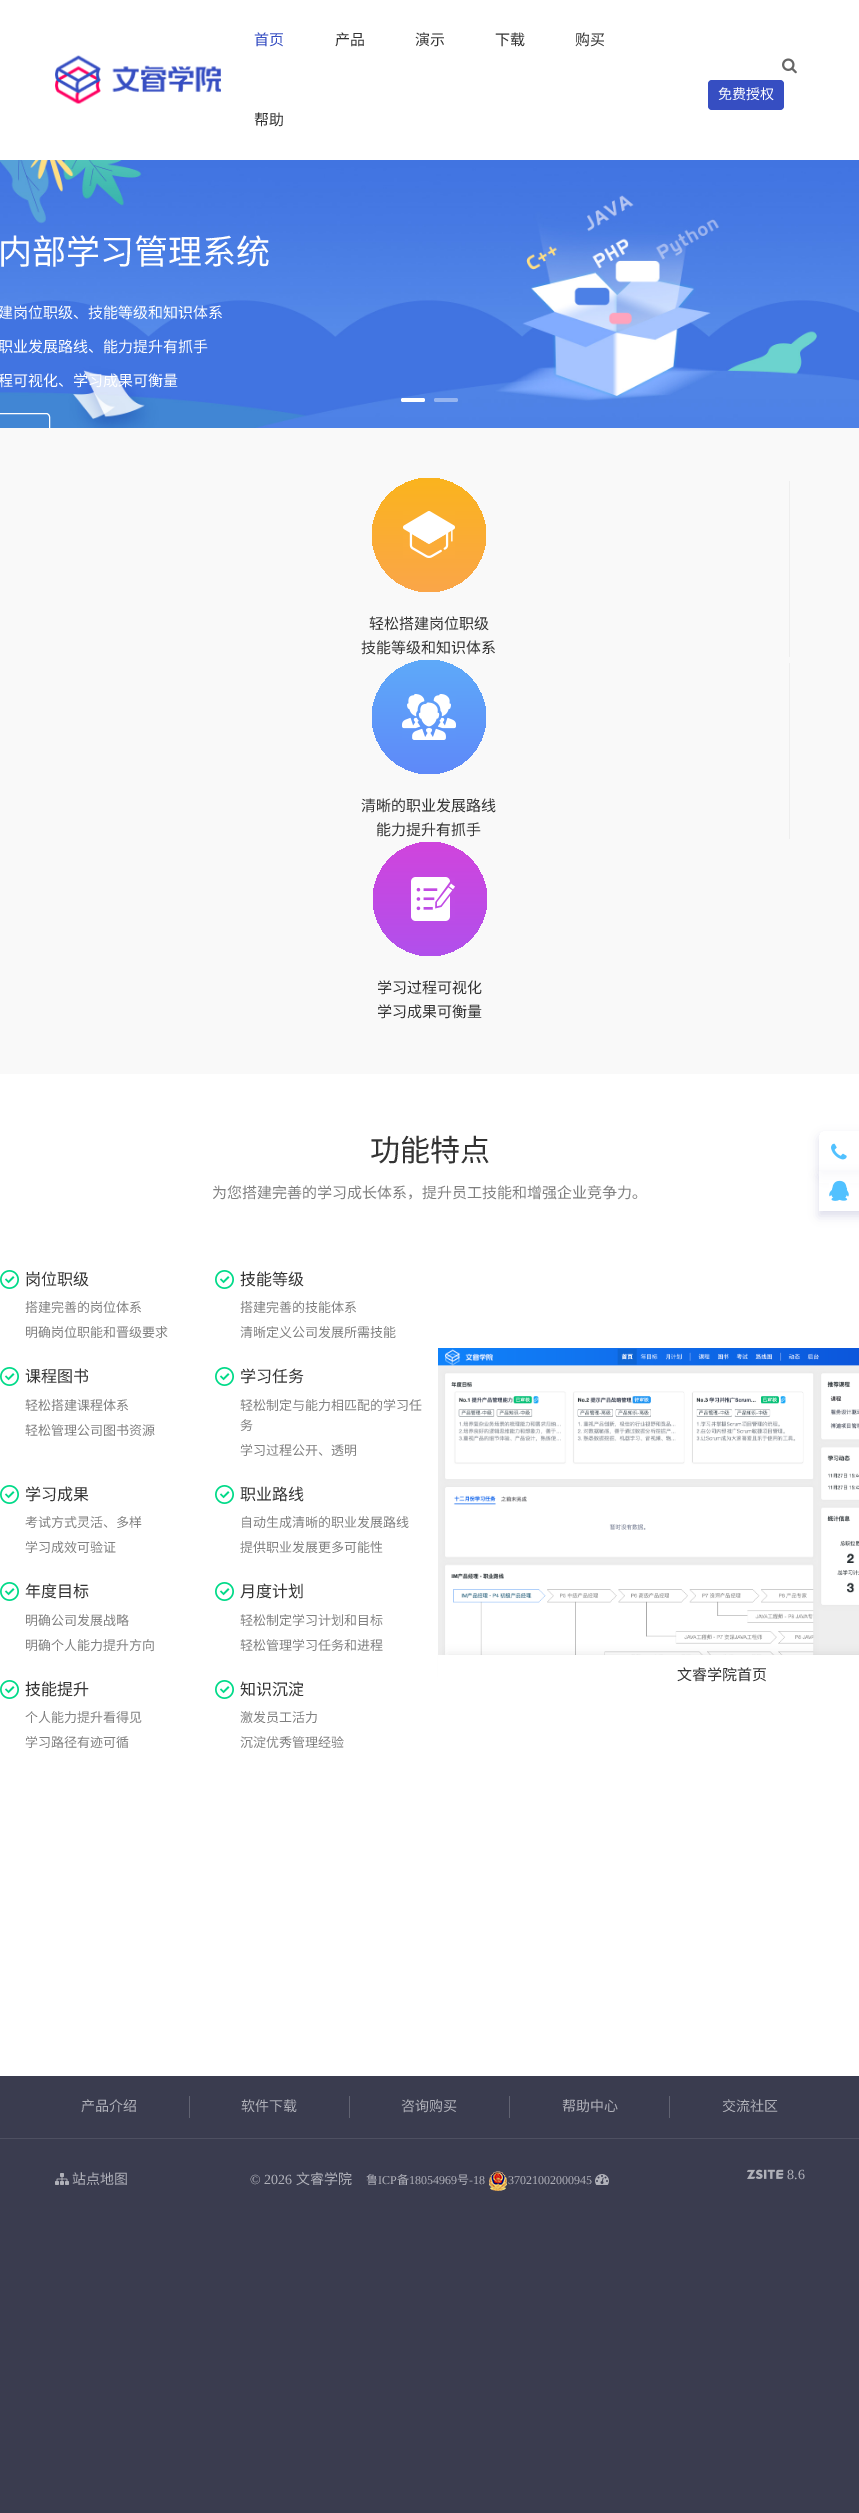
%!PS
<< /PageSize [859 2513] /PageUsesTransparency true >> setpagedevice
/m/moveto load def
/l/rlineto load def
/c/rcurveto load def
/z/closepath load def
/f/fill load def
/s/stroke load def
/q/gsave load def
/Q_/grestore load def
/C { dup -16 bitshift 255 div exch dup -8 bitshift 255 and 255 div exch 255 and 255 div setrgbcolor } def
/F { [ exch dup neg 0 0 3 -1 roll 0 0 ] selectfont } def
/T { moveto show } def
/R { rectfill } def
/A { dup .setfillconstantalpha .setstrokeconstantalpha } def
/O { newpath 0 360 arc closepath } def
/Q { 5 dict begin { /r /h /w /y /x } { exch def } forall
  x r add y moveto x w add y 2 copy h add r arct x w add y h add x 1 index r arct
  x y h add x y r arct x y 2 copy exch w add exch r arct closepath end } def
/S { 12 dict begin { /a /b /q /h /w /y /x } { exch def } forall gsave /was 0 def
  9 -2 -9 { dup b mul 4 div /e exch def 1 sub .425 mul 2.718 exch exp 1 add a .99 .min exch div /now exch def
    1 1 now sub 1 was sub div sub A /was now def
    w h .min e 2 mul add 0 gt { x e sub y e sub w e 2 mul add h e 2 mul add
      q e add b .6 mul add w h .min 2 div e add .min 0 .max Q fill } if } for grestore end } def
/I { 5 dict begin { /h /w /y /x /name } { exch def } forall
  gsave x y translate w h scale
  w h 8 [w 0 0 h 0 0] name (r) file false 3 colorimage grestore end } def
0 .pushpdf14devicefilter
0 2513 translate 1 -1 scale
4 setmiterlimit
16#3A3C4F C
0 0 859 2513 R
16#FFFFFF C
0 0 859 2076 R
(1.rgb) 55 55 166 49 I
/NotoSansCJKSC-Regular 15 F
16#364EC2 C
(首页) 254 45 T
16#333333 C
(产品) 335 45 T
(演示) 415 45 T
(下载) 495 45 T
(购买) 575 45 T
(帮助) 254 125 T
(2.rgb) 782 58 15 16 I
16#364EC2 C
708 80 76 30 4 Q f
/NotoSansCJKSC-Regular 14 F
16#FFFFFF C
(免费授权) 718 99 T
(3.rgb) 0 160 859 268 I
/NotoSansCJKSC-Regular 34 F
(内部学习管理系统) -2 264 T
/NotoSansCJKSC-Regular 15 F
(建岗位职级、技能等级和知识体系) -2 318 T
(职业发展路线、能力提升有抓手) -2 352 T
(程可视化、学习成果可衡量) -2 386 T
16#F9F9F9 C
0 428 859 646 R
q
0 160 859 268 rectclip
16#FFFFFF C
-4.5 413.5 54 35 3.5 Q s
Q_
16#FFFFFF C
401 398 24 4 2 Q f
16#95B4F0 C
434 398 24 4 2 Q f
16#EEEEEE C
789 481 1 176 R
q 429 535 57 O clip newpath
<< /ShadingType 2 /ColorSpace /DeviceRGB /Coords [429 478 429 592] /Extend [true true] /Function << /FunctionType 2 /Domain [0 1] /C0 [.98 .706 .118] /C1 [.984 .651 .286] /N 1 >> >> shfill Q_
(4.rgb) 403 511 52 47 I
16#333333 C
(轻松搭建岗位职级) 369 629 T
(技能等级和知识体系) 361 653 T
16#EEEEEE C
789 663 1 176 R
q 429 717 57 O clip newpath
<< /ShadingType 2 /ColorSpace /DeviceRGB /Coords [429 660 429 774] /Extend [true true] /Function << /FunctionType 2 /Domain [0 1] /C0 [.369 .667 .976] /C1 [.369 .537 .976] /N 1 >> >> shfill Q_
(5.rgb) 402 694 54 46 I
16#333333 C
(清晰的职业发展路线) 361 811 T
(能力提升有抓手) 376 835 T
q 430 899 57 O clip newpath
<< /ShadingType 2 /ColorSpace /DeviceRGB /Coords [430 842 430 956] /Extend [true true] /Function << /FunctionType 2 /Domain [0 1] /C0 [.816 .271 .867] /C1 [.694 .314 .925] /N 1 >> >> shfill Q_
(6.rgb) 411 877 44 44 I
(学习过程可视化) 377 993 T
(学习成果可衡量) 377 1017 T
/NotoSansCJKSC-Regular 30 F
(功能特点) 370 1161 T
/NotoSansCJKSC-Regular 15 F
16#808080 C
(为您搭建完善的学习成长体系，提升员工技能和增强企业竞争力。) 212 1198 T
(7.rgb) 0 1270 19 19 I
/NotoSansCJKSC-Regular 16 F
16#333333 C
(岗位职级) 25 1285 T
/NotoSansCJKSC-Regular 13 F
16#808080 C
(搭建完善的岗位体系) 25 1312 T
(明确岗位职能和晋级要求) 25 1337 T
(7.rgb) 215 1270 19 19 I
/NotoSansCJKSC-Regular 16 F
16#333333 C
(技能等级) 240 1285 T
/NotoSansCJKSC-Regular 13 F
16#808080 C
(搭建完善的技能体系) 240 1312 T
(清晰定义公司发展所需技能) 240 1337 T
(7.rgb) 0 1367 19 19 I
/NotoSansCJKSC-Regular 16 F
16#333333 C
(课程图书) 25 1382 T
/NotoSansCJKSC-Regular 13 F
16#808080 C
(轻松搭建课程体系) 25 1410 T
(轻松管理公司图书资源) 25 1435 T
(7.rgb) 215 1367 19 19 I
/NotoSansCJKSC-Regular 16 F
16#333333 C
(学习任务) 240 1382 T
/NotoSansCJKSC-Regular 13 F
16#808080 C
(轻松制定与能力相匹配的学习任) 240 1410 T
(务) 240 1430 T
(学习过程公开、透明) 240 1455 T
(7.rgb) 0 1485 19 19 I
/NotoSansCJKSC-Regular 16 F
16#333333 C
(学习成果) 25 1500 T
/NotoSansCJKSC-Regular 13 F
16#808080 C
(考试方式灵活、多样) 25 1527 T
(学习成效可验证) 25 1552 T
(7.rgb) 215 1485 19 19 I
/NotoSansCJKSC-Regular 16 F
16#333333 C
(职业路线) 240 1500 T
/NotoSansCJKSC-Regular 13 F
16#808080 C
(自动生成清晰的职业发展路线) 240 1527 T
(提供职业发展更多可能性) 240 1552 T
(7.rgb) 0 1582 19 19 I
/NotoSansCJKSC-Regular 16 F
16#333333 C
(年度目标) 25 1597 T
/NotoSansCJKSC-Regular 13 F
16#808080 C
(明确公司发展战略) 25 1625 T
(明确个人能力提升方向) 25 1650 T
(7.rgb) 215 1582 19 19 I
/NotoSansCJKSC-Regular 16 F
16#333333 C
(月度计划) 240 1597 T
/NotoSansCJKSC-Regular 13 F
16#808080 C
(轻松制定学习计划和目标) 240 1625 T
(轻松管理学习任务和进程) 240 1650 T
(7.rgb) 0 1680 19 19 I
/NotoSansCJKSC-Regular 16 F
16#333333 C
(技能提升) 25 1695 T
/NotoSansCJKSC-Regular 13 F
16#808080 C
(个人能力提升看得见) 25 1722 T
(学习路径有迹可循) 25 1747 T
(7.rgb) 215 1680 19 19 I
/NotoSansCJKSC-Regular 16 F
16#333333 C
(知识沉淀) 240 1695 T
/NotoSansCJKSC-Regular 13 F
16#808080 C
(激发员工活力) 240 1722 T
(沉淀优秀管理经验) 240 1747 T
(8.rgb) 438 1348 421 307 I
16#000000 C
448 1655 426 20 0 5 .1 S
16#FFFFFF C
438 1655 m 421 0 l 0 40 l -413 0 l -4.5 0 -8 -3.5 -8 -8 c z f
/NotoSansCJKSC-Regular 15 F
16#333333 C
(文睿学院首页) 677 1680 T
q
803 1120 m 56 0 l 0 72 l -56 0 l z 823 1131 m 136 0 l 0 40 l -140 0 l 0 -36 l 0 -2 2 -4 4 -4 c z eoclip newpath
16#5555A3 C
819 1136 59 40 4 5 .2 S
Q_
(9.rgb) 831 1143 16 17 I
q
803 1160 m 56 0 l 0 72 l -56 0 l z 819 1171 m 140 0 l 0 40 l -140 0 l z eoclip newpath
16#5555A3 C
819 1176 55 40 0 5 .2 S
Q_
0.8 A
16#FFFFFF C
819 1171 40 12 R
1 A
(10.rgb) 829 1180 20 21 I
16#4E5061 C
0 2138 859 1 R
16#616372 C
189 2096 1 22 R
/NotoSansCJKSC-Regular 14 F
16#B0B1B9 C
(产品介绍) 81 2111 T
16#616372 C
349 2096 1 22 R
16#B0B1B9 C
(软件下载) 241 2111 T
16#616372 C
509 2096 1 22 R
16#B0B1B9 C
(咨询购买) 401 2111 T
16#616372 C
669 2096 1 22 R
16#B0B1B9 C
(帮助中心) 562 2111 T
(交流社区) 722 2111 T
(11.rgb) 55 2173 14 12 I
(站点地图) 72 2184 T
/LiberationSerif-Regular 14 F
(© 2026) 250 2184 T
/NotoSansCJKSC-Regular 14 F
(文睿学院) 296 2184 T
/NotoSansCJKSC-Regular 12 F
(鲁) 366 2184 T
/LiberationSerif-Regular 12 F
(ICP) 378 2184 T
/NotoSansCJKSC-Regular 12 F
(备) 397 2184 T
/LiberationSerif-Regular 12 F
(18054969) 409 2184 T
/NotoSansCJKSC-Regular 12 F
(号) 457 2184 T
/LiberationSerif-Regular 12 F
(-18) 469 2184 T
(12.rgb) 489 2171 18 20 I
(37021002000945) 508 2184 T
(13.rgb) 595 2174 14 11 I
(14.rgb) 747 2169 37 10 I
/LiberationSerif-Regular 14 F
(8.6) 787 2179 T
.poppdf14devicefilter showpage
